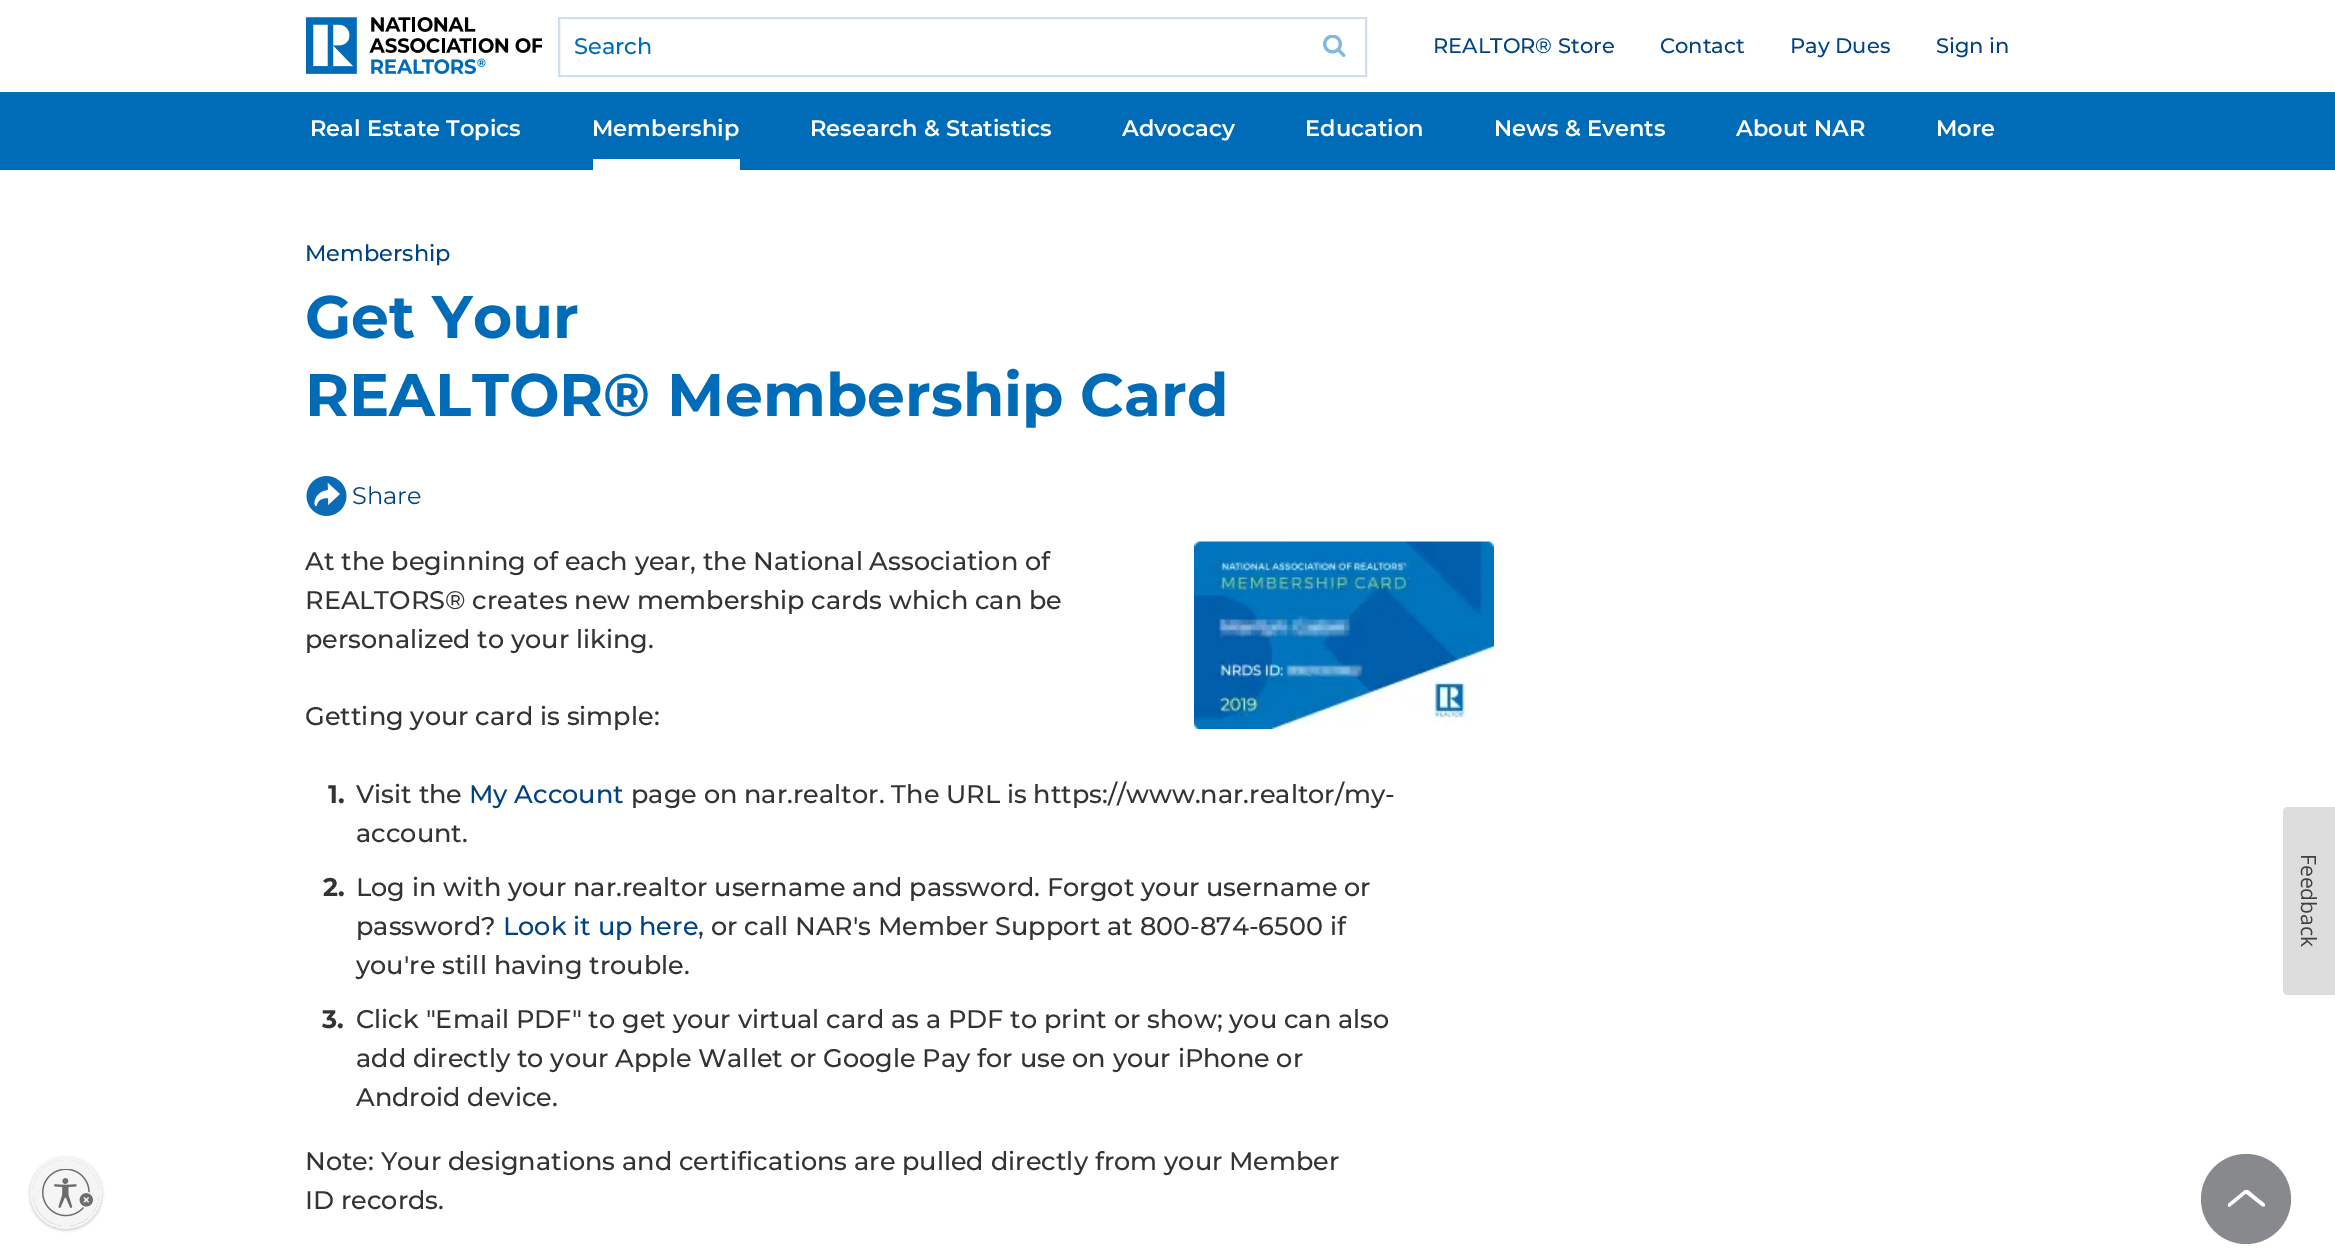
%!PS
<< /PageSize [2335 1258] /PageUsesTransparency true >> setpagedevice
/m/moveto load def
/l/rlineto load def
/c/rcurveto load def
/z/closepath load def
/f/fill load def
/s/stroke load def
/q/gsave load def
/Q_/grestore load def
/w/setlinewidth load def
/C { dup -16 bitshift 255 div exch dup -8 bitshift 255 and 255 div exch 255 and 255 div setrgbcolor } def
/F { [ exch dup neg 0 0 3 -1 roll 0 0 ] selectfont } def
/T { moveto show } def
/R { rectfill } def
/A { dup .setfillconstantalpha .setstrokeconstantalpha } def
/O { newpath 0 360 arc closepath } def
/Q { 5 dict begin { /r /h /w /y /x } { exch def } forall
  x r add y moveto x w add y 2 copy h add r arct x w add y h add x 1 index r arct
  x y h add x y r arct x y 2 copy exch w add exch r arct closepath end } def
/S { 12 dict begin { /a /b /q /h /w /y /x } { exch def } forall gsave /was 0 def
  9 -2 -9 { dup b mul 4 div /e exch def 1 sub .425 mul 2.718 exch exp 1 add a .99 .min exch div /now exch def
    1 1 now sub 1 was sub div sub A /was now def
    w h .min e 2 mul add 0 gt { x e sub y e sub w e 2 mul add h e 2 mul add
      q e add b .6 mul add w h .min 2 div e add .min 0 .max Q fill } if } for grestore end } def
/I { 5 dict begin { /h /w /y /x /name } { exch def } forall
  gsave x y translate w h scale
  w h 8 [w 0 0 h 0 0] name (r) file false 3 colorimage grestore end } def
0 .pushpdf14devicefilter
0 1258 translate 1 -1 scale
4 setmiterlimit
16#FFFFFF C
0 0 2335 1258 R
(1.rgb) 306 17 236 57 I
16#D1DEEE C
2 w
559 18 807 58 rectstroke
/Montserrat-Medium 22.5 F
16#006BB7 C
(Search) 574 54 T
(2.rgb) 1323 35 23 22 I
/Montserrat-Medium 21 F
16#004282 C
(REALTOR® Store) 1433 53 T
(Contact) 1660 53 T
(Pay Dues) 1790 53 T
(Sign in) 1936 53 T
16#006CB7 C
0 92 2335 78 R
/Montserrat-SemiBold 22.5 F
16#FFFFFF C
(Real Estate Topics) 310 136 T
(Membership) 592 136 T
593 159 147 11 R
(Research & Statistics) 810 136 T
(Advocacy) 1122 136 T
(Education) 1305 136 T
(News & Events) 1494 136 T
(About NAR) 1736 136 T
(More) 1936 136 T
/Montserrat-Medium 22.5 F
16#004282 C
(Membership) 305 261 T
/Montserrat-Bold 60 F
16#006BB7 C
(Get Your) 305 338 T
(REALTOR® Membership Card) 305 416 T
(3.rgb) 306 476 41 40 I
/Montserrat-Regular 24 F
16#004282 C
(Share) 352 504 T
/Montserrat-Medium 25.5 F
16#333333 C
(At the beginning of each year, the National Association of) 305 570 T
(REALTORS® creates new membership cards which can be) 305 609 T
(personalized to your liking.) 305 648 T
(4.rgb) 1194 541 300 188 I
(Getting your card is simple:) 305 725 T
/Montserrat-Bold 25.5 F
(1.) 328 803 T
/Montserrat-Medium 25.5 F
(Visit the) 356 803 T
16#004282 C
(My Account) 469 803 T
16#333333 C
(page on nar.realtor. The URL is https://www.nar.realtor/my-) 631 803 T
(account.) 356 842 T
/Montserrat-Bold 25.5 F
(2.) 323 896 T
/Montserrat-Medium 25.5 F
(Log in with your nar.realtor username and password. Forgot your username or) 356 896 T
(password?) 356 935 T
16#004282 C
(Look it up here) 503 935 T
16#333333 C
(, or call NAR's Member Support at 800-874-6500 if) 698 935 T
(you're still having trouble.) 356 974 T
/Montserrat-Bold 25.5 F
(3.) 322 1028 T
/Montserrat-Medium 25.5 F
(Click "Email PDF" to get your virtual card as a PDF to print or show; you can also) 356 1028 T
(add directly to your Apple Wallet or Google Pay for use on your iPhone or) 356 1067 T
(Android device.) 356 1106 T
(Note: Your designations and certifications are pulled directly from your Member) 305 1170 T
(ID records.) 305 1209 T
16#88898D C
2246 1199 45 O f
q
2228 1190 37 18 rectclip
16#FFFFFF C
2246 1193.5 m -16 13 l -1.5 .5 -3.5 -.5 -2 -2.5 c 17 -14 l 1.5 -.5 l 1.5 0 6 4.5 7.5 5.5 c 6 5 l .5 .5 7.5 4.5 4 6.5 c -1.5 0 l z f
Q_
16#DDDDDD C
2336 807 m 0 188 l -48 0 l -3 0 -5 -2 -5 -5 c 0 -178 l 0 -3 2 -5 5 -5 c z f
/OpenSans-Regular 21 F
16#404040 C
q 2301 854 translate 90 rotate 0 0 m (Feedback) show Q_
16#000000 C
30 1158 72 72 36 1.5 .24 S
16#F5F5F5 C
3 w
66 1193 34.5 O s
q
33 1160 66 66 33 Q clip newpath
16#000000 C
33 1161 66 66 33 1.5 .24 S
Q_
66 1193 33 O f
(5.rgb) 42 1169 51 48 I
.poppdf14devicefilter showpage
